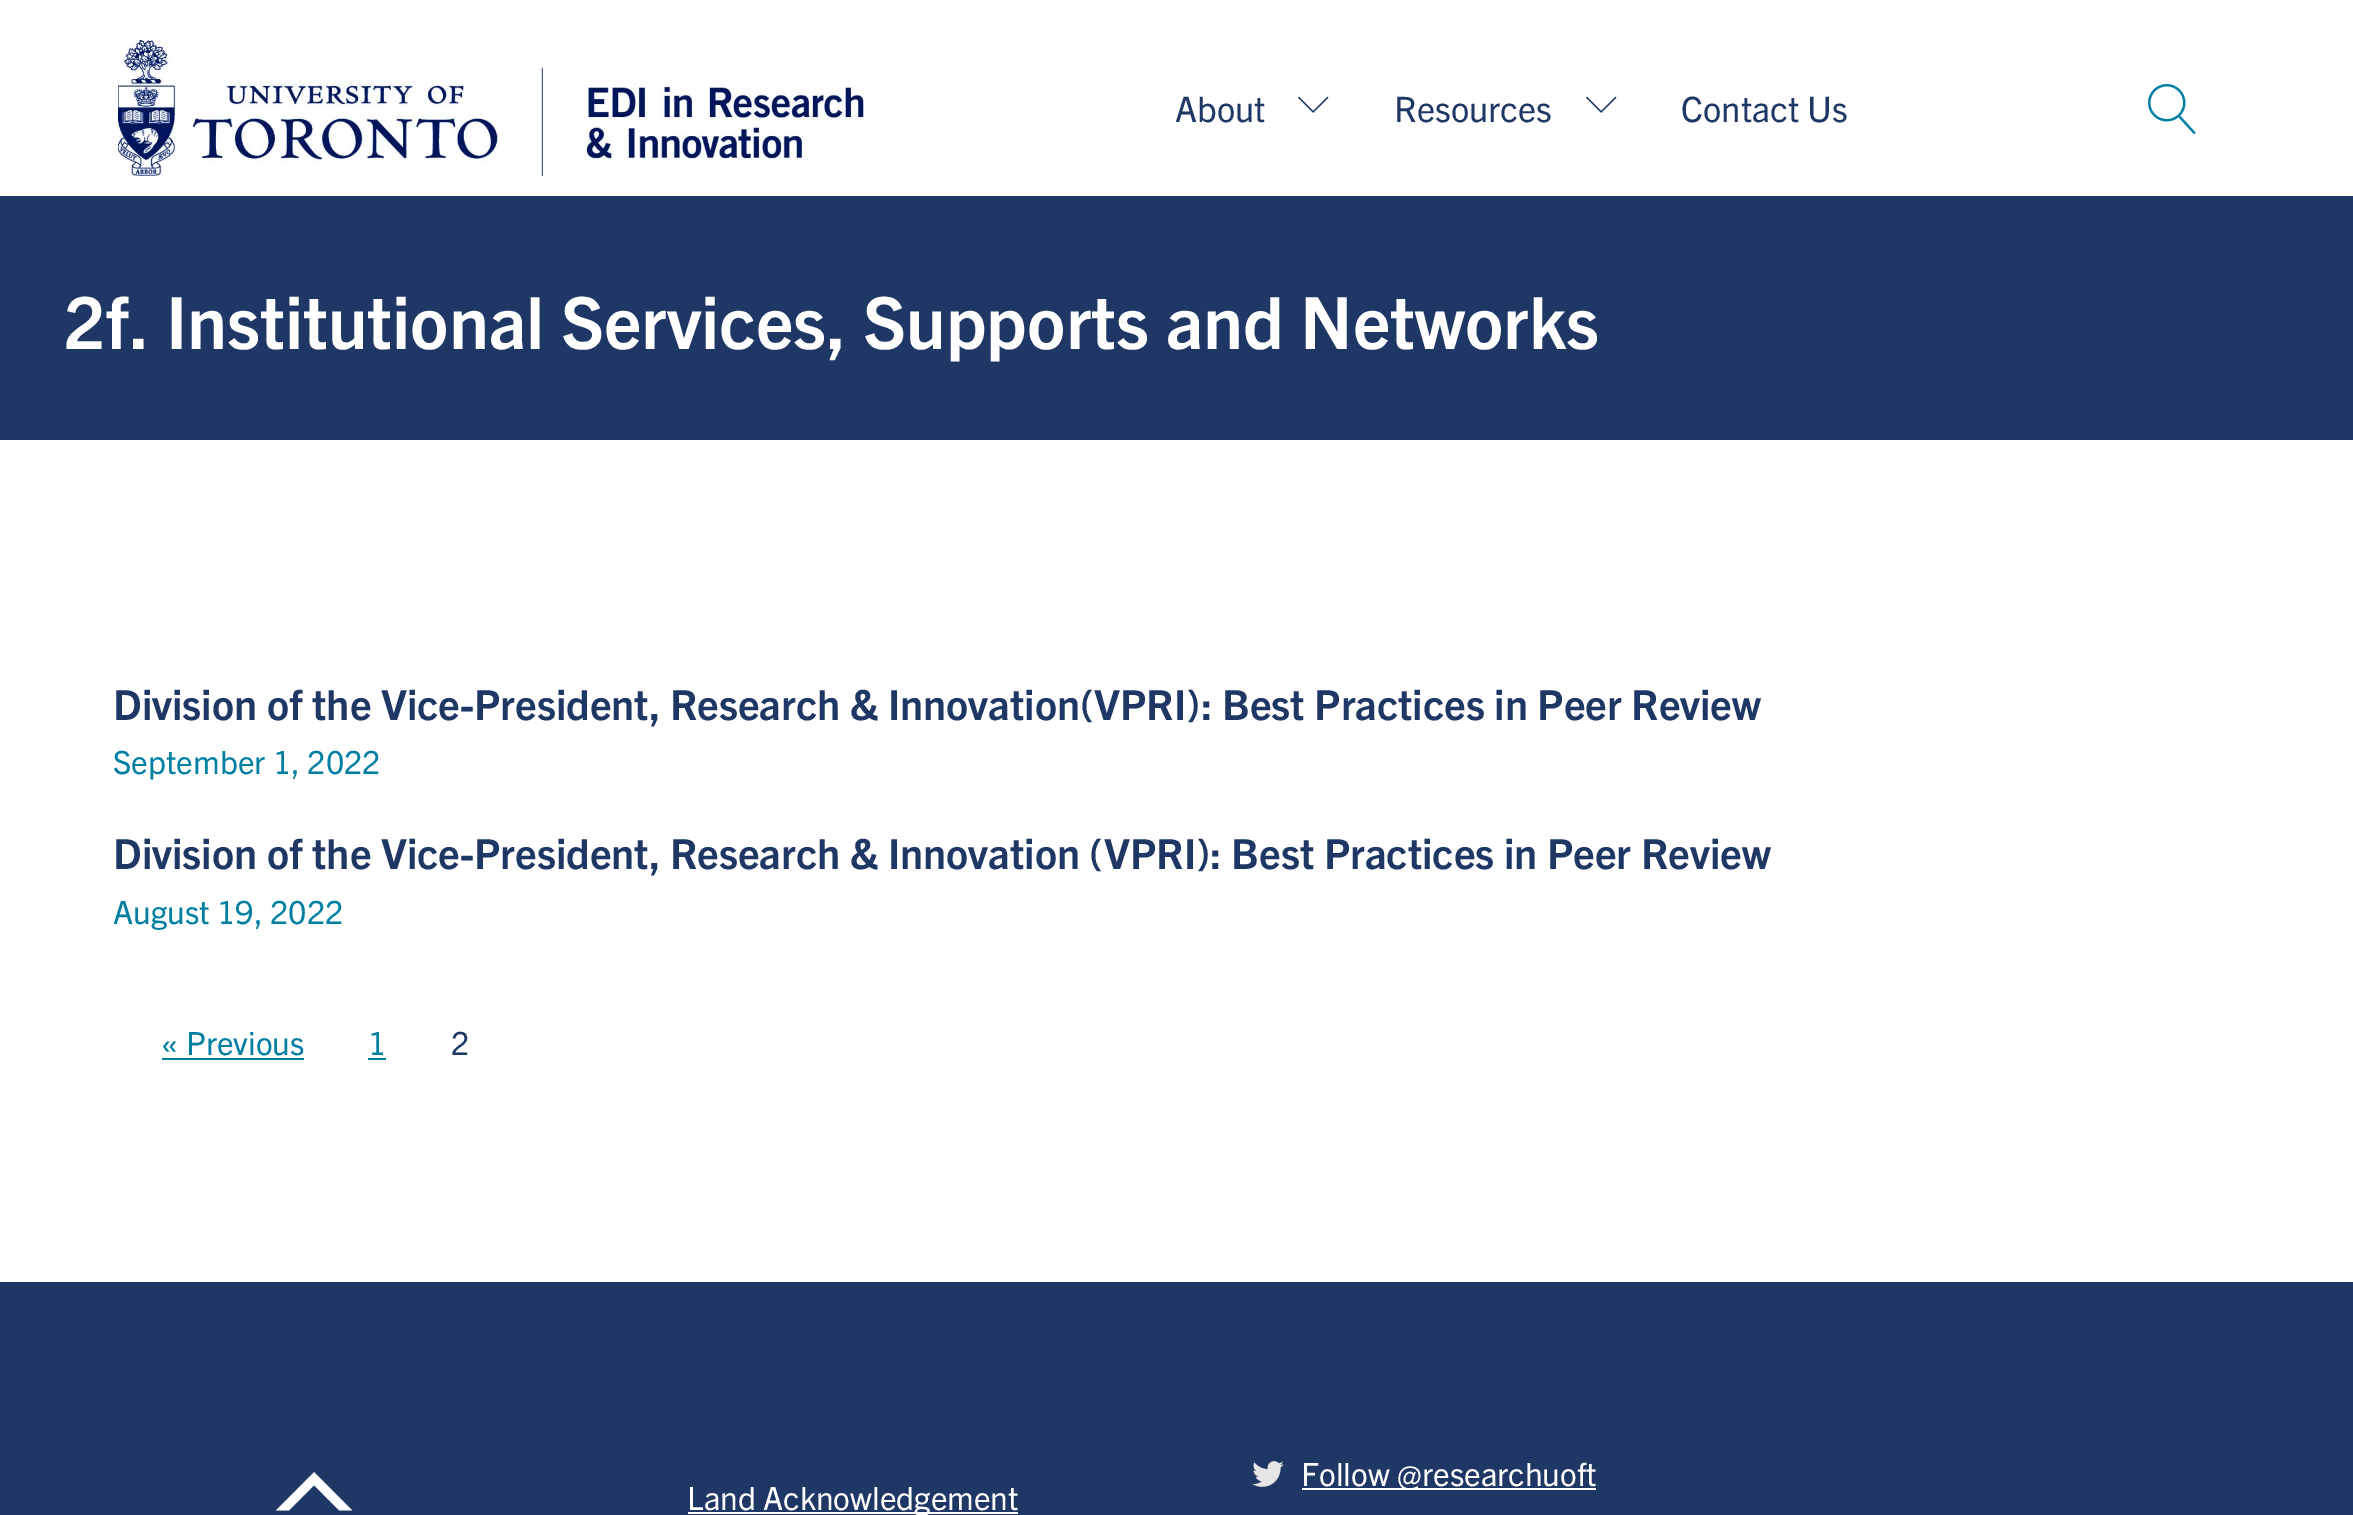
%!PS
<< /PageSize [2353 1515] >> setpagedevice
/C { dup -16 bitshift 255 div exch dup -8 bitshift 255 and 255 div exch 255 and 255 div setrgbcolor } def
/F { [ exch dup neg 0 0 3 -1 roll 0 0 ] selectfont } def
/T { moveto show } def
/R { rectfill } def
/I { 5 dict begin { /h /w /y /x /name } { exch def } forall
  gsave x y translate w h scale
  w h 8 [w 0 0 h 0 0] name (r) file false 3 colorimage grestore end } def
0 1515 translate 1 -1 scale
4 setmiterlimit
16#FFFFFF C
0 0 2353 1515 R
(1.rgb) 118 40 751 136 I
/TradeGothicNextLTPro-Regular 35 F
16#1E3765 C
(About) 1175 122 T
(2.rgb) 1298 96 31 17 I
(Resources) 1394 122 T
(2.rgb) 1586 96 31 17 I
(Contact Us) 1681 122 T
(3.rgb) 2148 84 48 50 I
0 196 2353 244 R
/TradeGothicNextLTPro-Bold 72 F
16#FFFFFF C
(2f. Institutional Services, Supports and Networks) 64 349 T
/TradeGothicNextLTPro-Bold 41.6 F
16#1E3765 C
(Division of the Vice-President, Research & Innovation\(VPRI\): Best Practices in Peer Review) 113 720 T
/TradeGothicNextLTPro-Regular 32 F
16#007FA3 C
(September 1, 2022) 113 774 T
/TradeGothicNextLTPro-Bold 41.6 F
16#1E3765 C
(Division of the Vice-President, Research & Innovation \(VPRI\): Best Practices in Peer Review) 113 869 T
/TradeGothicNextLTPro-Regular 32 F
16#007FA3 C
(August 19, 2022) 113 924 T
(« Previous) 161 1055 T
162 1058 142 2 R
(1) 368 1055 T
368 1058 18 2 R
16#1E3765 C
(2) 451 1055 T
0 1282 2353 233 R
(4.rgb) 275 1472 78 39 I
16#FFFFFF C
688 1512 330 2 R
(Land Acknowledgement) 687 1510 T
(5.rgb) 1252 1461 32 26 I
1302 1488 294 2 R
(Follow @researchuoft) 1301 1486 T
showpage
